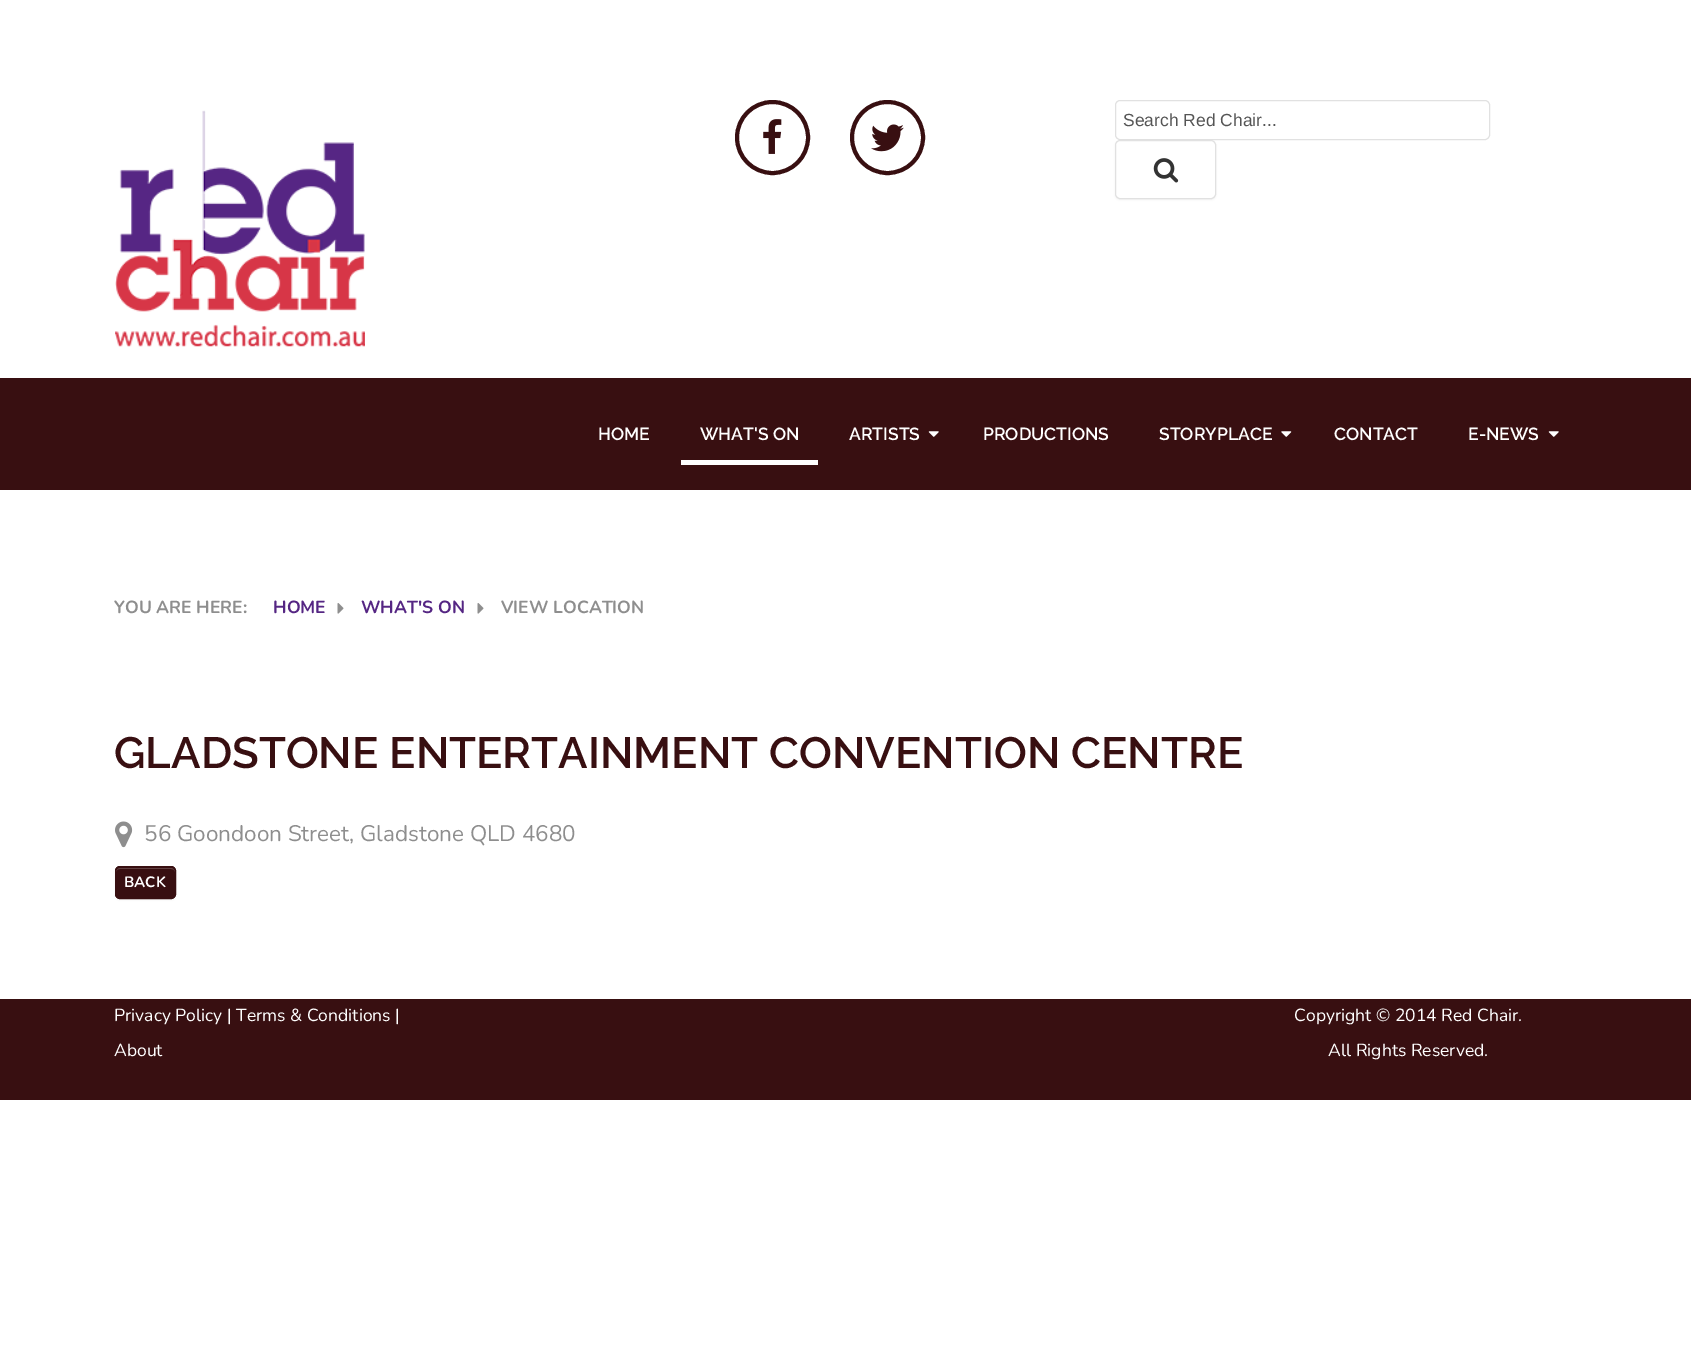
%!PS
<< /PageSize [1691 1364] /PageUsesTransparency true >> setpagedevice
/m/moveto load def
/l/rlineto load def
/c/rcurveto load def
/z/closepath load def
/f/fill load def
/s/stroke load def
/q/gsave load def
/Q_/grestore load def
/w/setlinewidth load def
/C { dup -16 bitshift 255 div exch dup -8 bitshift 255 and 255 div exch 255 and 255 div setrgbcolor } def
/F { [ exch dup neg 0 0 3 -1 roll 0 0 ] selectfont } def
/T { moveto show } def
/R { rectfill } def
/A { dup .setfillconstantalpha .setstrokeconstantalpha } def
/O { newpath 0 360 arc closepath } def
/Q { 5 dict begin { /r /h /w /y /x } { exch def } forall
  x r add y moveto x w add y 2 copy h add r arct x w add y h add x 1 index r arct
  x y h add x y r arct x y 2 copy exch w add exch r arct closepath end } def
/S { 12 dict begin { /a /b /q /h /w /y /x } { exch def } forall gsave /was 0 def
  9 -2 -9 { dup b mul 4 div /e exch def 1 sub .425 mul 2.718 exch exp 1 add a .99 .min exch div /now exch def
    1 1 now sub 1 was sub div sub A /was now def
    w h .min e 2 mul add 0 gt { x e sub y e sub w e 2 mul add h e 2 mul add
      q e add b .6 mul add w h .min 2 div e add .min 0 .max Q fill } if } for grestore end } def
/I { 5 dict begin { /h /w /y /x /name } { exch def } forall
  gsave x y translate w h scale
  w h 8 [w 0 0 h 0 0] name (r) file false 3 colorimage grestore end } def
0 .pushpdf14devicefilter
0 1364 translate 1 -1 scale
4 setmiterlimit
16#FFFFFF C
0 0 1691 1364 R
(1.rgb) 115 110 250 237 I
16#380F11 C
4 w
772.5 137.5 35.5 O s
(2.rgb) 763 119 19 35 I
887.5 137.5 35.5 O s
(3.rgb) 871 124 33 28 I
16#E1E1E1 C
1 w
1115.5 100.5 374 39 4.5 Q s
/LiberationSans-Regular 17.5 F
16#555555 C
(Search Red Chair...) 1123 126 T
16#000000 C
1115 141 101 59 5 1 .05 S
16#FFFFFF C
1115.5 140.5 100 58 4.5 Q q f Q_
16#E1E1E1 C
s
(4.rgb) 1153 158 26 25 I
16#380F11 C
0 378 1691 112 R
/Raleway-SemiBold 17.5 F
16#FFFFFF C
(HOME) 598 440 T
(WHAT'S ON) 700 440 T
681 460 137 5 R
(ARTISTS) 849 440 T
(5.rgb) 928 431 11 6 I
(PRODUCTIONS) 983 440 T
(STORYPLACE) 1159 440 T
(6.rgb) 1281 431 11 6 I
(CONTACT) 1334 440 T
(E-NEWS) 1468 440 T
(5.rgb) 1548 431 11 6 I
/Nunito-Bold 17.5 F
16#8E8E8E C
(YOU ARE HERE:) 114 613 T
16#552683 C
(HOME) 273 613 T
(7.rgb) 337 603 7 11 I
(WHAT'S ON) 361 613 T
(7.rgb) 477 603 7 11 I
16#8E8E8E C
(VIEW LOCATION) 501 613 T
/Raleway-SemiBold 43.75 F
16#380F11 C
(GLADSTONE ENTERTAINMENT CONVENTION CENTRE) 114 768 T
(8.rgb) 115 821 18 27 I
/Nunito-Regular 22.5 F
16#8E8E8E C
(56 Goondoon Street, Gladstone QLD 4680) 144 841 T
16#000000 C
115 868 61 32 5 1 .05 S
16#380F11 C
115 866 61 33 5 Q f
16#603F41 C
120 869 m 51 0 l 2 0 4 1 4 3 c 0 -2 -2 -4 -4 -4 c -51 0 l -2 0 -4 2 -4 4 c 0 -2 2 -3 4 -3 c z f
16#380F11 C
115.5 866.5 60 32 4.5 Q s
/Nunito-Bold 15 F
16#FFFFFF C
(BACK) 124 887 T
16#380F11 C
0 999 1691 101 R
/Nunito-Regular 17.5 F
16#FFFFFF C
(Privacy Policy | Terms & Conditions |) 114 1021 T
(About) 114 1056 T
(Copyright © 2014 Red Chair.) 1294 1021 T
(All Rights Reserved.) 1328 1056 T
.poppdf14devicefilter showpage
